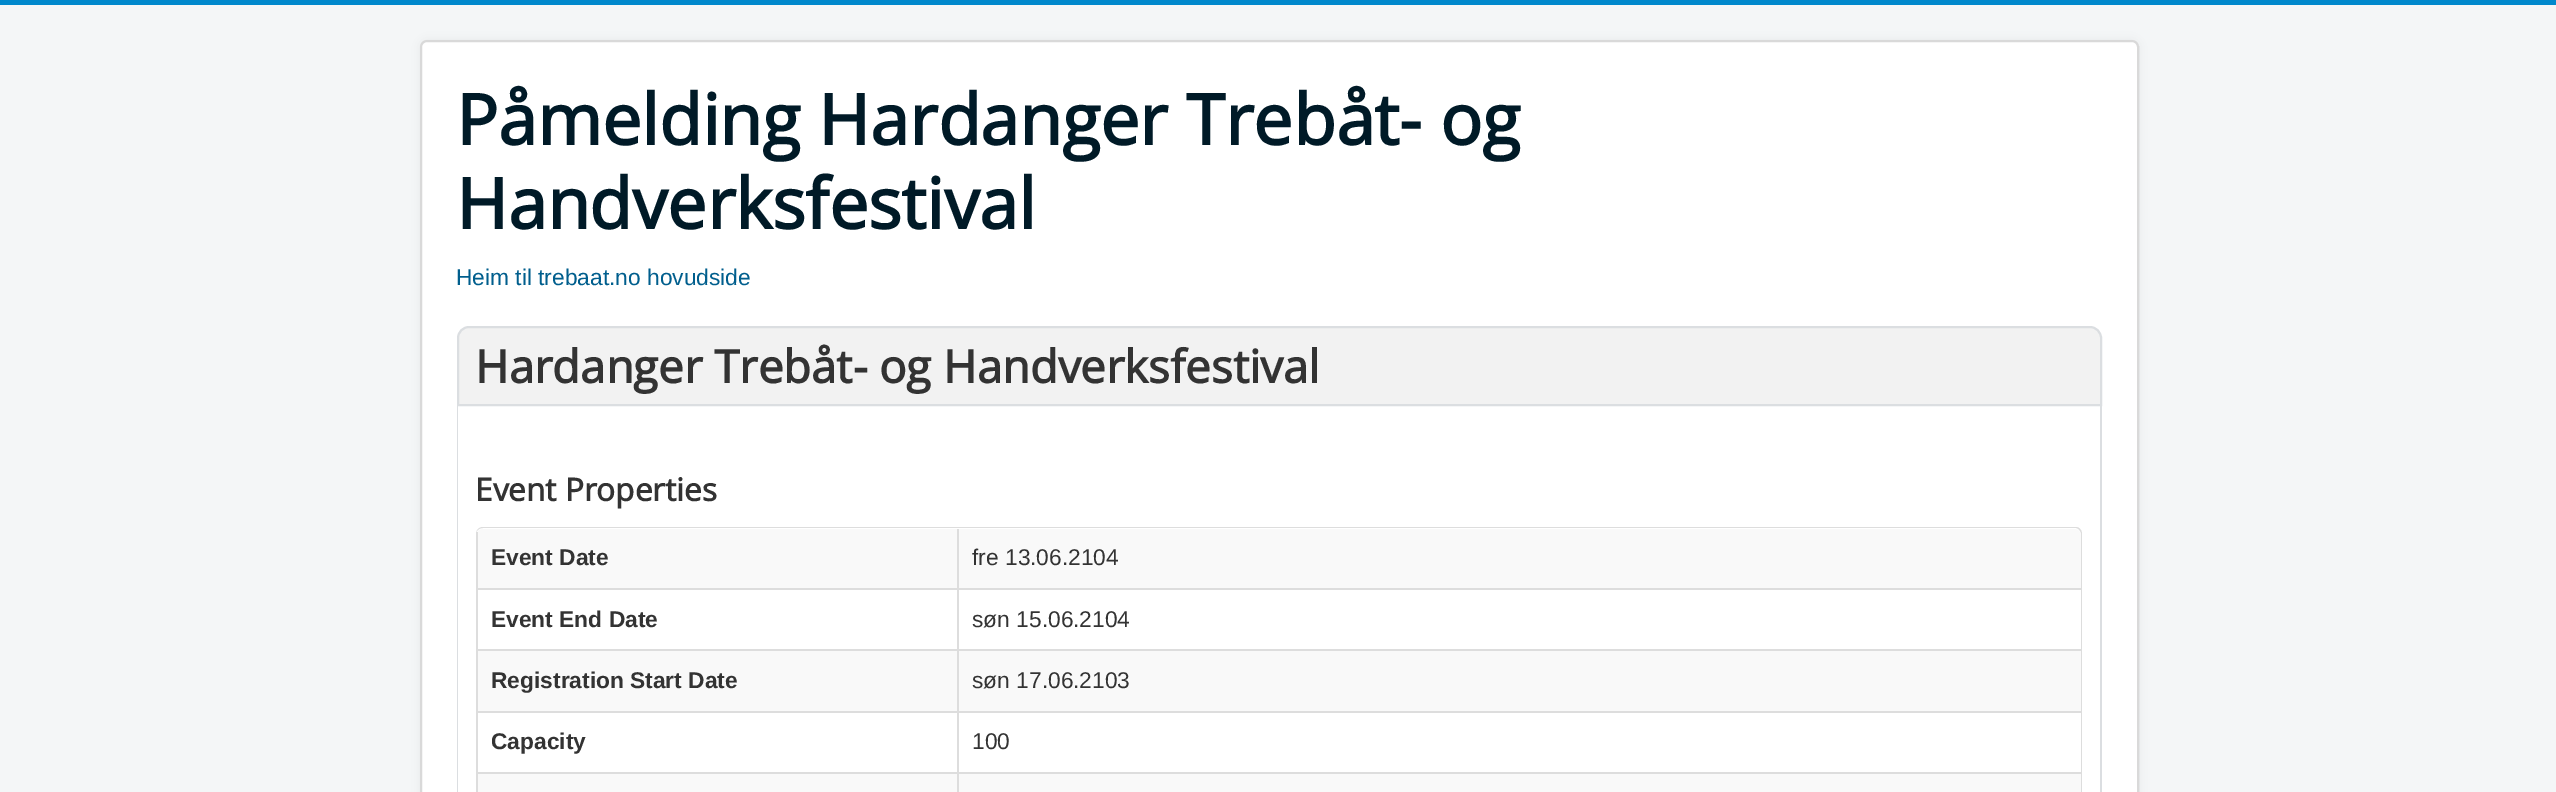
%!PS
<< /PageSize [2556 792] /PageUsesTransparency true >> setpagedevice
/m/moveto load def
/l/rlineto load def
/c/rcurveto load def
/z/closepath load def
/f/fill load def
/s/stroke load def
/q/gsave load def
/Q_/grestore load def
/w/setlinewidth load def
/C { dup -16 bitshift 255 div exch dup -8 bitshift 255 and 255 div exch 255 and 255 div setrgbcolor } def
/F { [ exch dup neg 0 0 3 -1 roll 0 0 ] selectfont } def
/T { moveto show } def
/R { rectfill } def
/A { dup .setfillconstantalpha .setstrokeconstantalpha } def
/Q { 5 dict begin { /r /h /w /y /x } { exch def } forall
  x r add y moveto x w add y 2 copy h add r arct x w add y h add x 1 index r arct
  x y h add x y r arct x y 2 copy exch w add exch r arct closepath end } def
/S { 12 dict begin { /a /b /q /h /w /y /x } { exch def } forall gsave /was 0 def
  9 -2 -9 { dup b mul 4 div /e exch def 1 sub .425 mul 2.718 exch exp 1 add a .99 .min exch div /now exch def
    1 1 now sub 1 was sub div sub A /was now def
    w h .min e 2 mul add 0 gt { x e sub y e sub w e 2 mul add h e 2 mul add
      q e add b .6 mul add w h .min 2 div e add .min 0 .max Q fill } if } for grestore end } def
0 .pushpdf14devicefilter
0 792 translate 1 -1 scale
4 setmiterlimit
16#F4F6F7 C
0 0 2556 792 R
16#0088CC C
0 0 2556 5 R
16#000000 C
420 40 1719 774 7 5 .05 S
16#FFFFFF C
420 40 1719 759 7 Q f
0.15 A
16#000000 C
2 w
421 41 1717 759 6 Q s
/OpenSans-Bold 70 F
1 A
16#001A27 C
(Påmelding Hardanger Trebåt- og) 456 145 T
(Handverksfestival) 456 229 T
/LiberationSans-Regular 22.75 F
16#005E8D C
(Heim til trebaat.no hovudside) 456 285 T
16#F2F2F2 C
469 327 m 1621 0 l 6 0 11 5 11 11 c 0 67 l -1643 0 l 0 -67 l 0 -6 5 -11 11 -11 c z q f Q_
16#DBDEE1 C
s
/OpenSans-Bold 45.5 F
16#333333 C
(Hardanger Trebåt- og Handverksfestival) 475 383 T
16#DBDEE1 C
457 406 m 1645 0 l 0 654 l 0 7 -6 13 -12 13 c -1621 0 l -7 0 -12 -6 -12 -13 c z 458 406 m 1642 0 l 0 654 l 0 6 -5 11 -10 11 c -1621 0 l -6 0 -11 -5 -11 -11 c z eofill
/OpenSans-Bold 31.5 F
16#333333 C
(Event Properties) 475 501 T
16#DDDDDD C
483 527 m 1593 0 l 3 0 6 3 6 7 c 0 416 l 0 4 -3 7 -6 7 c -1593 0 l -4 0 -7 -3 -7 -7 c 0 -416 l 0 -4 3 -7 7 -7 c z 483 528 m 1593 0 l 2 0 5 3 5 6 c 0 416 l 0 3 -3 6 -5 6 c -1593 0 l -4 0 -7 -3 -7 -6 c 0 -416 l 0 -3 3 -6 7 -6 c z eofill
16#F9F9F9 C
483 529 m 474 0 l 0 59 l -481 0 l 0 -52 l 0 -4 3 -7 7 -7 c z f
16#DDDDDD C
476 532 2 56 R
/LiberationSans-Bold 22.75 F
16#333333 C
(Event Date) 491 565 T
16#F9F9F9 C
957 529 m 1117 0 l 4 0 7 3 7 7 c 0 52 l -1124 0 l z f
16#DDDDDD C
957 529 2 59 R
/LiberationSans-Regular 22.75 F
16#333333 C
(fre 13.06.2104) 972 565 T
16#DDDDDD C
476 588 1605 2 R
476 588 2 61 R
/LiberationSans-Bold 22.75 F
16#333333 C
(Event End Date) 491 627 T
16#DDDDDD C
957 588 2 61 R
/LiberationSans-Regular 22.75 F
16#333333 C
(søn 15.06.2104) 972 627 T
16#F9F9F9 C
478 651 479 60 R
16#DDDDDD C
476 649 1605 2 R
476 649 2 62 R
/LiberationSans-Bold 22.75 F
16#333333 C
(Registration Start Date) 491 688 T
16#F9F9F9 C
959 651 1122 60 R
16#DDDDDD C
957 649 2 62 R
/LiberationSans-Regular 22.75 F
16#333333 C
(søn 17.06.2103) 972 688 T
16#DDDDDD C
476 711 1605 2 R
476 711 2 61 R
/LiberationSans-Bold 22.75 F
16#333333 C
(Capacity) 491 749 T
16#DDDDDD C
957 711 2 61 R
/LiberationSans-Regular 22.75 F
16#333333 C
(100) 972 749 T
16#F9F9F9 C
478 774 479 18 R
16#DDDDDD C
476 772 1605 2 R
476 772 2 20 R
16#F9F9F9 C
959 774 1122 18 R
16#DDDDDD C
957 772 2 20 R
.poppdf14devicefilter showpage
